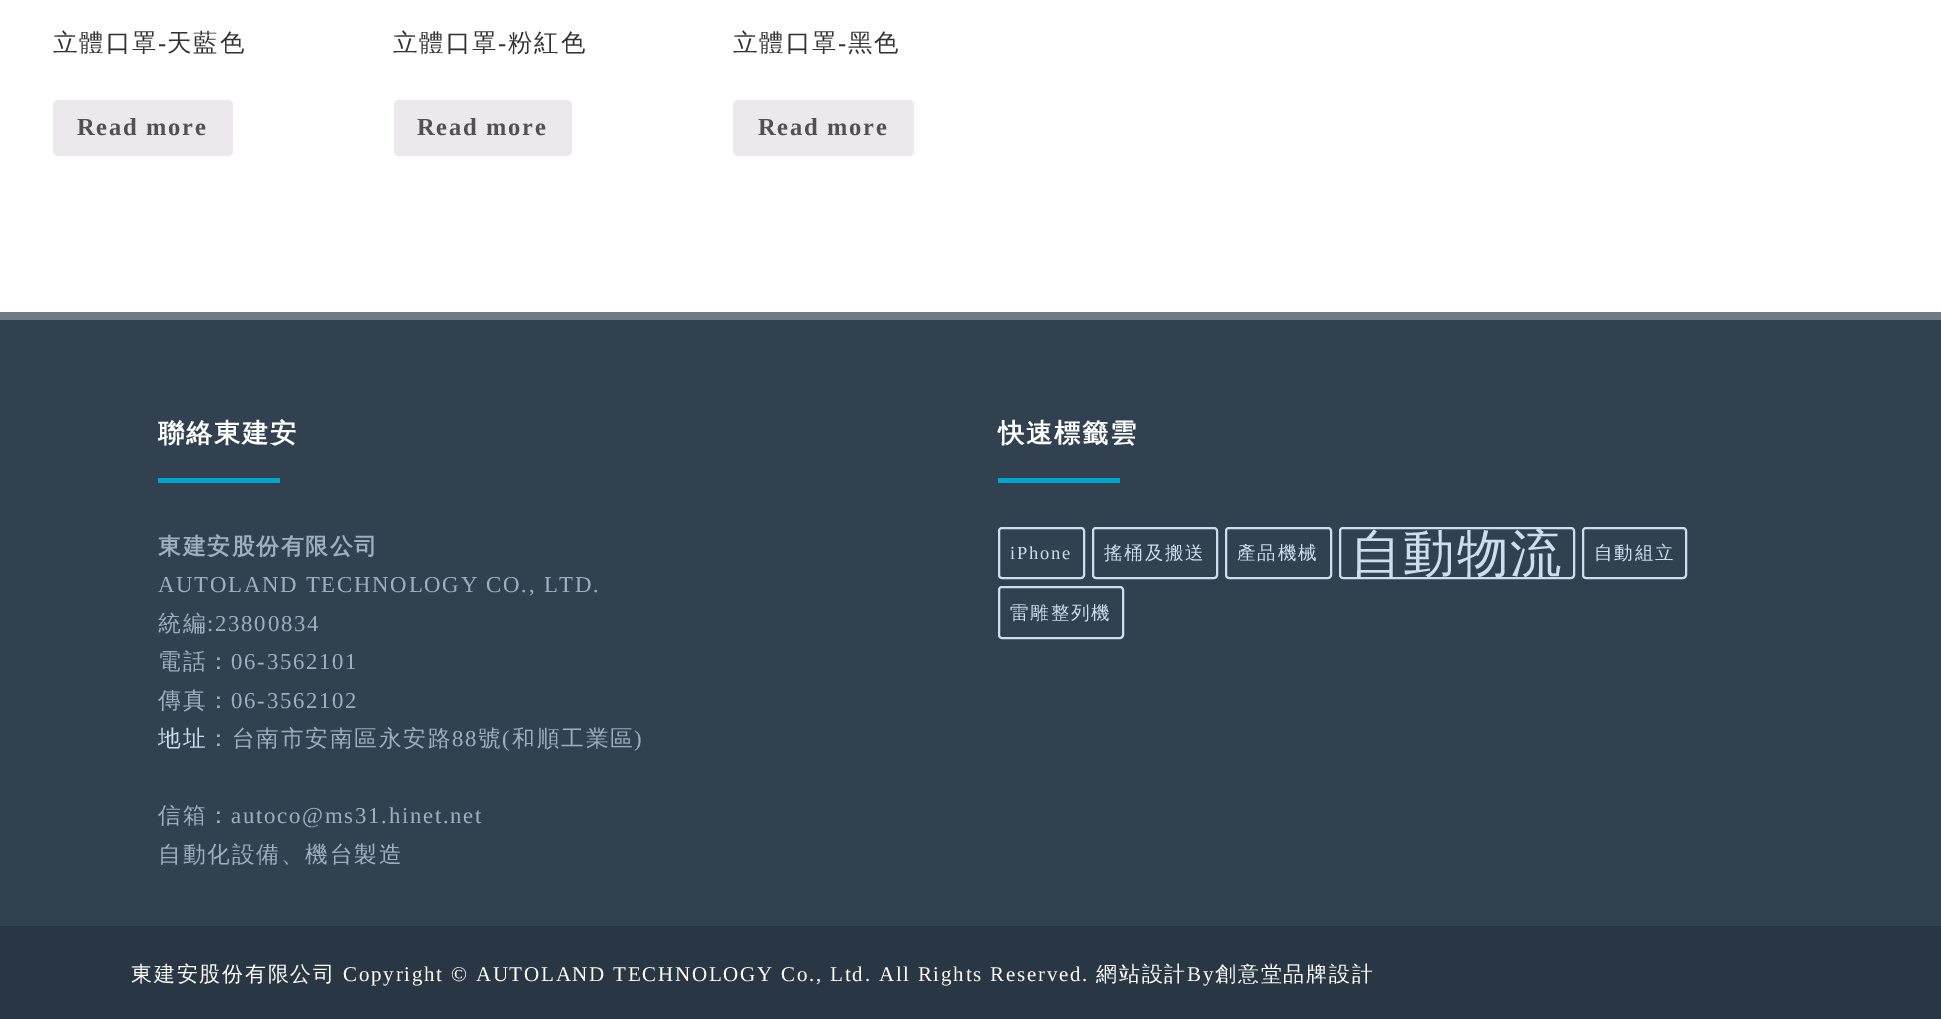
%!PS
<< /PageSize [1941 1019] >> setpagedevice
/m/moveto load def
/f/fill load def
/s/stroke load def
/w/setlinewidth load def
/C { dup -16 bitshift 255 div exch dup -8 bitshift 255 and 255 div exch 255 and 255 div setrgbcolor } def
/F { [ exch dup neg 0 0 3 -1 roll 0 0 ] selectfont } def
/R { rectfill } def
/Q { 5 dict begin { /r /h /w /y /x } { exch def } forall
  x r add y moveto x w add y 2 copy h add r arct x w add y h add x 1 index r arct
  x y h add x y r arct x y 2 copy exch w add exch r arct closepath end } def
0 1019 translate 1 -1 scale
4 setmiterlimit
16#FFFFFF C
0 0 1941 1019 R
/WenQuanYiZenHei-Medium 24.5 F
16#333333 C
53 51 m 1.75 0 (立體口罩) ashow
/LiberationSerif-Regular 24.5 F
158 51 m 1.75 0 (-) ashow
/WenQuanYiZenHei-Medium 24.5 F
167 51 m 1.75 0 (天藍色) ashow
16#EBE9EB C
53 100 180 56 5 Q f
/LiberationSerif-Bold 24.5 F
16#515151 C
77 135 m 1.75 0 (Read more) ashow
/WenQuanYiZenHei-Medium 24.5 F
16#333333 C
393 51 m 1.75 0 (立體口罩) ashow
/LiberationSerif-Regular 24.5 F
498 51 m 1.75 0 (-) ashow
/WenQuanYiZenHei-Medium 24.5 F
508 51 m 1.75 0 (粉紅色) ashow
16#EBE9EB C
394 100 178 56 5 Q f
/LiberationSerif-Bold 24.5 F
16#515151 C
417 135 m 1.75 0 (Read more) ashow
/WenQuanYiZenHei-Medium 24.5 F
16#333333 C
733 51 m 1.75 0 (立體口罩) ashow
/LiberationSerif-Regular 24.5 F
838 51 m 1.75 0 (-) ashow
/WenQuanYiZenHei-Medium 24.5 F
848 51 m 1.75 0 (黑色) ashow
16#EBE9EB C
733 100 181 56 5 Q f
/LiberationSerif-Bold 24.5 F
16#515151 C
758 135 m 1.75 0 (Read more) ashow
16#314150 C
0 320 1941 606 R
16#6F7A85 C
0 312 1941 8 R
/WenQuanYiZenHei-Bold 26.25 F
16#FFFFFF C
158 442 m 1.75 0 (聯絡東建安) ashow
16#00A4D0 C
158 478 122 5 R
/WenQuanYiZenHei-Bold 22.75 F
16#9EAFBF C
158 554 m 1.75 0 (東建安股份有限公司) ashow
/LiberationSerif-Regular 22.75 F
158 592 m 1.75 0 (AUTOLAND TECHNOLOGY CO., LTD.) ashow
/WenQuanYiZenHei-Medium 22.75 F
158 631 m 1.75 0 (統編) ashow
/LiberationSerif-Regular 22.75 F
207 631 m 1.75 0 (:23800834) ashow
/WenQuanYiZenHei-Medium 22.75 F
158 669 m 1.75 0 (電話：) ashow
/LiberationSerif-Regular 22.75 F
231 669 m 1.75 0 (06-3562101) ashow
/WenQuanYiZenHei-Medium 22.75 F
158 708 m 1.75 0 (傳真：) ashow
/LiberationSerif-Regular 22.75 F
231 708 m 1.75 0 (06-3562102) ashow
/WenQuanYiZenHei-Medium 22.75 F
16#CDDEEE C
158 746 m 1.75 0 (地址) ashow
16#9EAFBF C
207 746 m 1.75 0 (：台南市安南區永安路) ashow
/LiberationSerif-Regular 22.75 F
452 746 m 1.75 0 (88) ashow
/WenQuanYiZenHei-Medium 22.75 F
478 746 m 1.75 0 (號) ashow
/LiberationSerif-Regular 22.75 F
502 746 m 1.75 0 (\() ashow
/WenQuanYiZenHei-Medium 22.75 F
512 746 m 1.75 0 (和順工業區) ashow
/LiberationSerif-Regular 22.75 F
634 746 m 1.75 0 (\)) ashow
/WenQuanYiZenHei-Medium 22.75 F
158 823 m 1.75 0 (信箱：) ashow
/LiberationSerif-Regular 22.75 F
231 823 m 1.75 0 (autoco@ms31.hinet.net) ashow
/WenQuanYiZenHei-Medium 22.75 F
158 862 m 1.75 0 (自動化設備、機台製造) ashow
/WenQuanYiZenHei-Bold 26.25 F
16#FFFFFF C
998 442 m 1.75 0 (快速標籤雲) ashow
16#00A4D0 C
998 478 122 5 R
16#CDDEEE C
2 w
999 528 85 50 3 Q s
/LiberationSerif-Regular 18.5 F
1010 559 m 1.75 0 (iPhone) ashow
1093 528 124 50 3 Q s
/WenQuanYiZenHei-Medium 18.5 F
1104 559 m 1.75 0 (搖桶及搬送) ashow
1226 528 105 50 3 Q s
1237 559 m 1.75 0 (產品機械) ashow
1340 528 234 50 3 Q s
/WenQuanYiZenHei-Medium 51.5 F
1350 571 m 1.75 0 (自動物流) ashow
1583 528 103 50 3 Q s
/WenQuanYiZenHei-Medium 18.5 F
1594 559 m 1.75 0 (自動組立) ashow
999 587 124 51 3 Q s
1010 619 m 1.75 0 (雷雕整列機) ashow
16#293744 C
0 926 1941 93 R
/WenQuanYiZenHei-Medium 21 F
16#FFFFFF C
131 981 m 1.75 0 (東建安股份有限公司) ashow
/LiberationSerif-Regular 21 F
343 981 m 1.75 0 (Copyright © AUTOLAND TECHNOLOGY Co., Ltd. All Rights Reserved.) ashow
/WenQuanYiZenHei-Medium 21 F
1096 981 m 1.75 0 (網站設計) ashow
/LiberationSerif-Regular 21 F
1187 981 m 1.75 0 (By) ashow
/WenQuanYiZenHei-Medium 21 F
1215 981 m 1.75 0 (創意堂品牌設計) ashow
showpage
